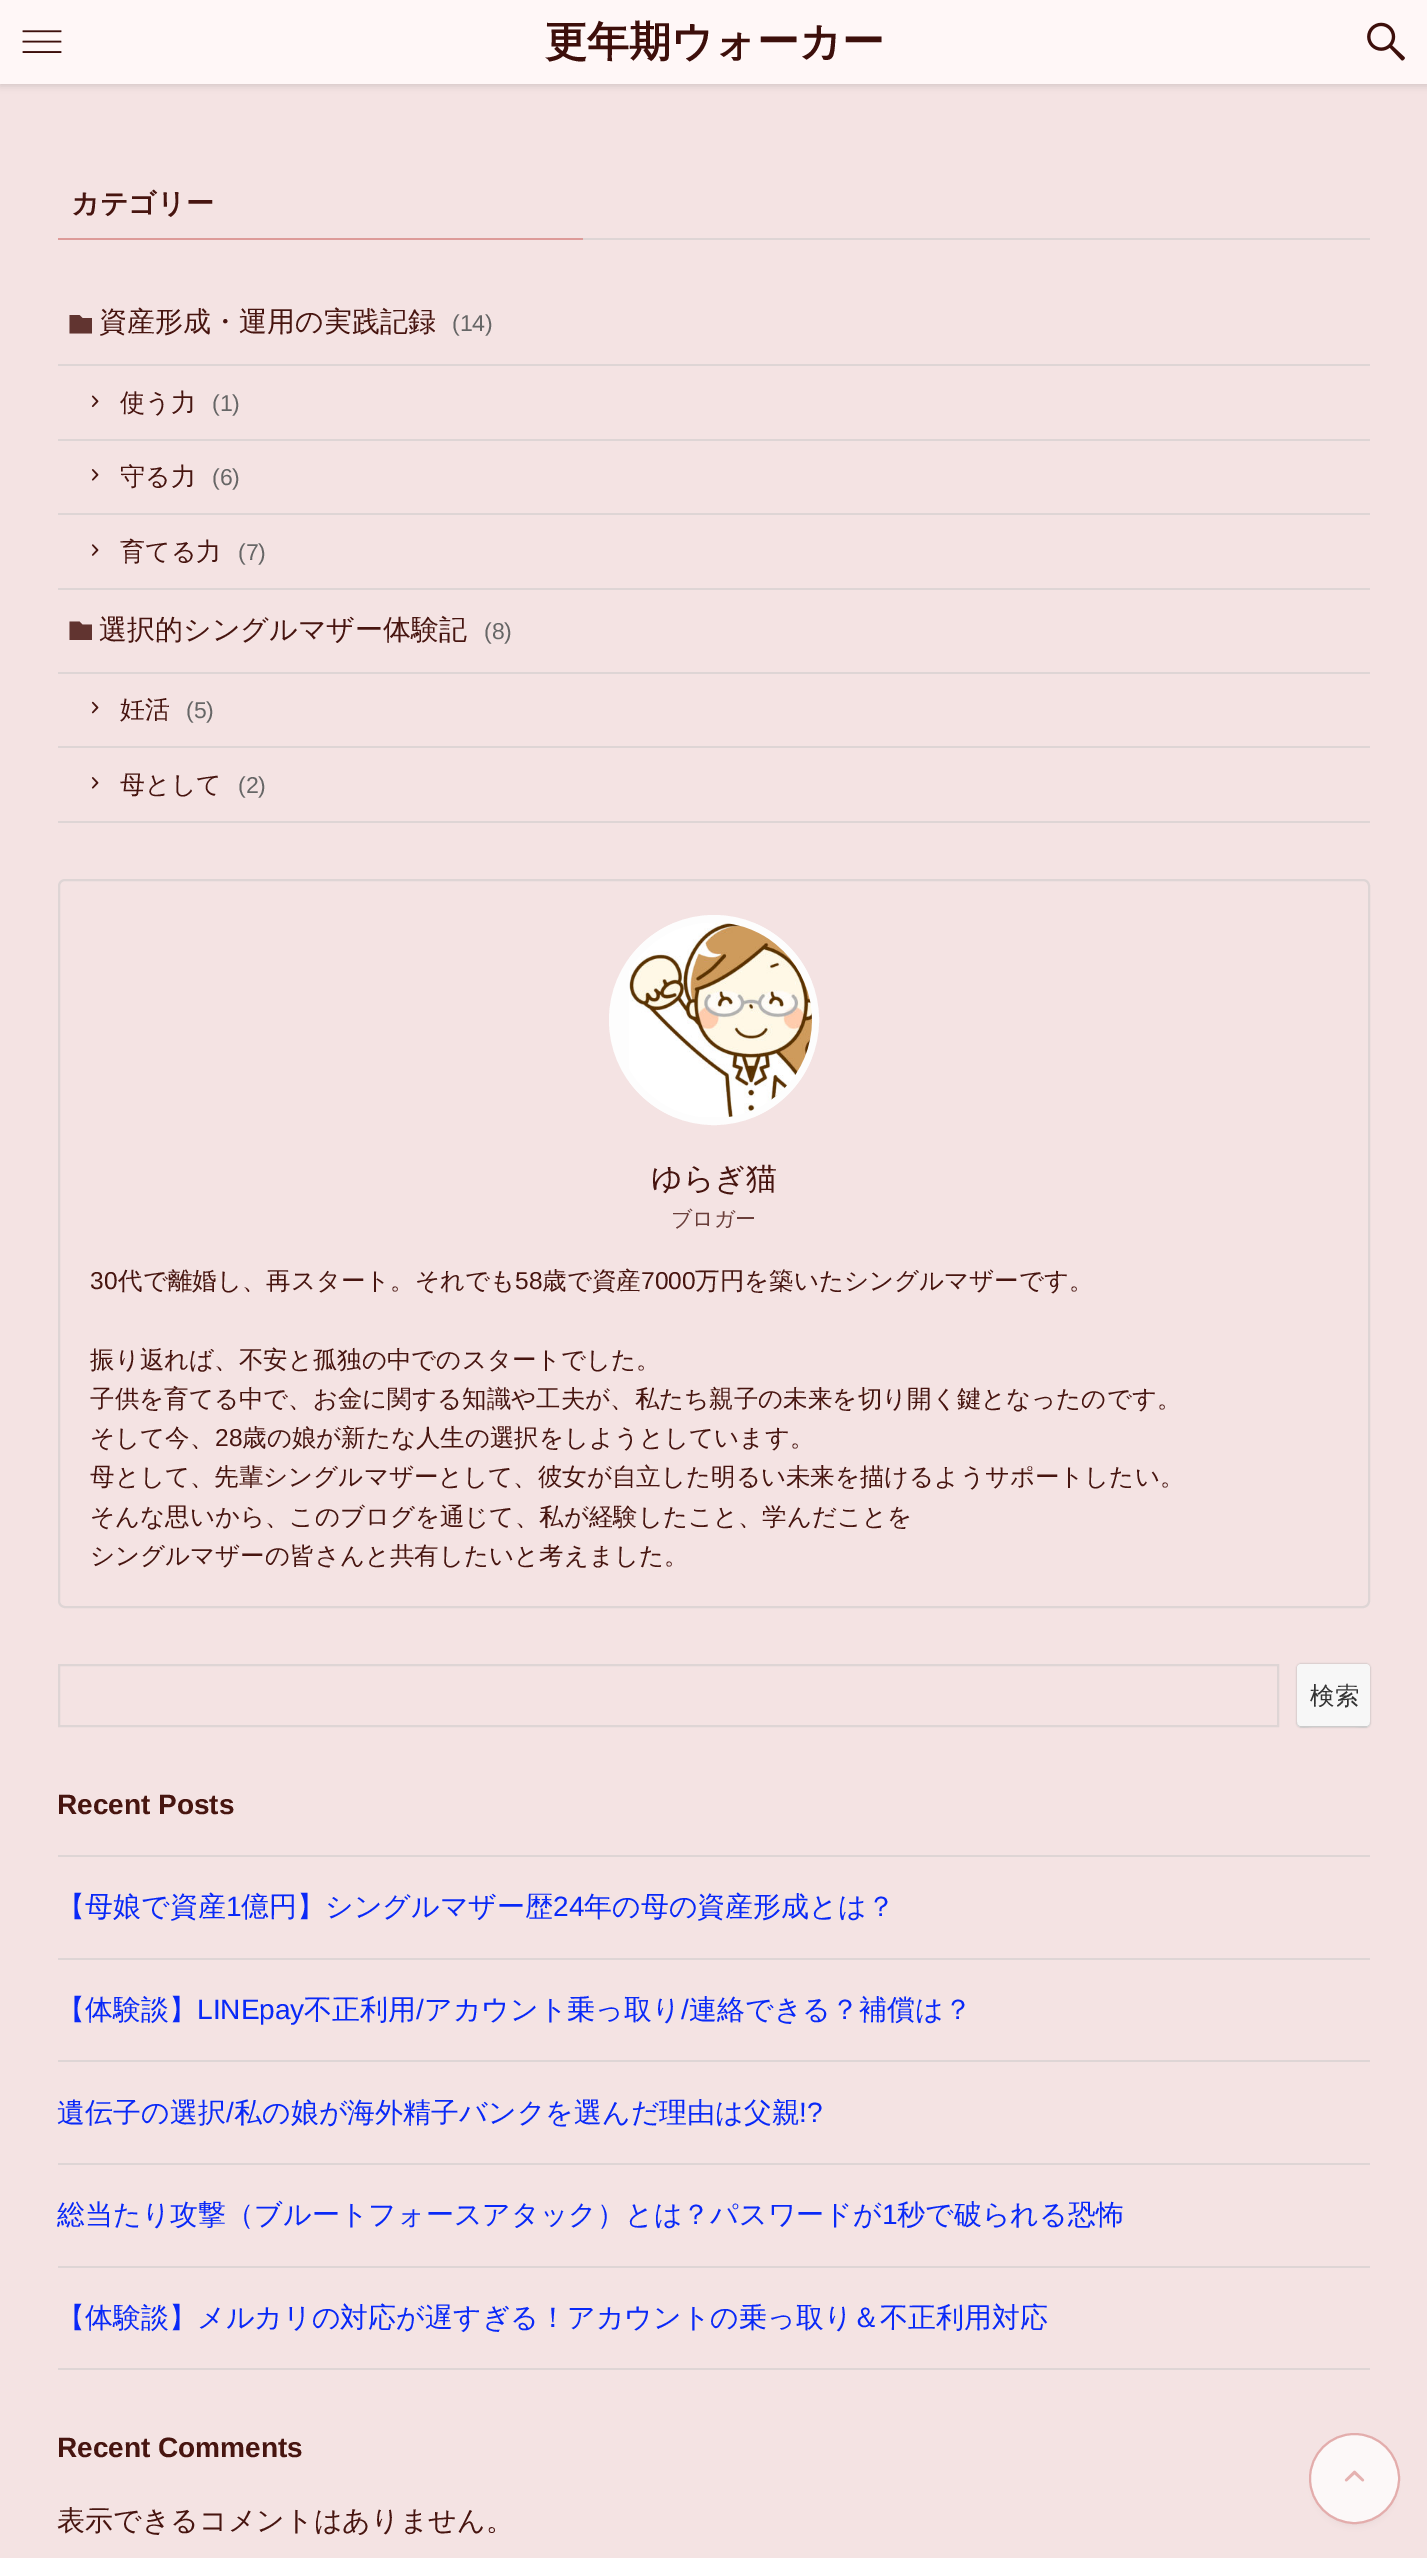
%!PS
<< /PageSize [1427 2558] /PageUsesTransparency true >> setpagedevice
/m/moveto load def
/l/rlineto load def
/c/rcurveto load def
/z/closepath load def
/f/fill load def
/s/stroke load def
/q/gsave load def
/Q_/grestore load def
/w/setlinewidth load def
/C { dup -16 bitshift 255 div exch dup -8 bitshift 255 and 255 div exch 255 and 255 div setrgbcolor } def
/F { [ exch dup neg 0 0 3 -1 roll 0 0 ] selectfont } def
/T { moveto show } def
/R { rectfill } def
/A { dup .setfillconstantalpha .setstrokeconstantalpha } def
/O { newpath 0 360 arc closepath } def
/Q { 5 dict begin { /r /h /w /y /x } { exch def } forall
  x r add y moveto x w add y 2 copy h add r arct x w add y h add x 1 index r arct
  x y h add x y r arct x y 2 copy exch w add exch r arct closepath end } def
/S { 12 dict begin { /a /b /q /h /w /y /x } { exch def } forall gsave /was 0 def
  9 -2 -9 { dup b mul 4 div /e exch def 1 sub .425 mul 2.718 exch exp 1 add a .99 .min exch div /now exch def
    1 1 now sub 1 was sub div sub A /was now def
    w h .min e 2 mul add 0 gt { x e sub y e sub w e 2 mul add h e 2 mul add
      q e add b .6 mul add w h .min 2 div e add .min 0 .max Q fill } if } for grestore end } def
/I { 5 dict begin { /h /w /y /x /name } { exch def } forall
  gsave x y translate w h scale
  w h 8 [w 0 0 h 0 0] name (r) file false 3 colorimage grestore end } def
0 .pushpdf14devicefilter
0 2558 translate 1 -1 scale
4 setmiterlimit
16#F4E3E3 C
0 0 1427 2558 R
16#000000 C
0 2 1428 84 0 3.5 .12 S
16#FFF7F7 C
0 0 1427 84 R
(1.rgb) 22 30 40 23 I
/WenQuanYiZenHei-Bold 42 F
16#3D0F0B C
(更年期ウォーカー) 545 56 T
(2.rgb) 1367 22 38 39 I
/WenQuanYiZenHei-Bold 28 F
16#471510 C
(カテゴリー) 71 213 T
16#DD9B99 C
58 238 525 2 R
16#DED5D5 C
583 238 787 2 R
58 364 1312 2 R
16#613430 C
79.5 315 m 3 3 l 9.5 0 l 0 15.5 l -22.5 0 l 0 -18.5 l z f
/WenQuanYiZenHei-Medium 28 F
16#471510 C
(資産形成・運用の実践記録) 99 331 T
/LiberationSans-Regular 23 F
16#666666 C
(\(14\)) 452 331 T
16#DED5D5 C
58 439 1312 2 R
(3.rgb) 91 395 8 13 I
/WenQuanYiZenHei-Medium 25 F
16#471510 C
(使う力) 120 411 T
/LiberationSans-Regular 23 F
16#666666 C
(\(1\)) 212 411 T
16#DED5D5 C
58 513 1312 2 R
(4.rgb) 91 469 8 12 I
/WenQuanYiZenHei-Medium 25 F
16#471510 C
(守る力) 120 485 T
/LiberationSans-Regular 23 F
16#666666 C
(\(6\)) 212 485 T
16#DED5D5 C
58 588 1312 2 R
(5.rgb) 91 544 8 12 I
/WenQuanYiZenHei-Medium 25 F
16#471510 C
(育てる力) 120 560 T
/LiberationSans-Regular 23 F
16#666666 C
(\(7\)) 238 560 T
16#DED5D5 C
58 672 1312 2 R
16#613430 C
79.5 621.5 m 3 3 l 9.5 0 l 0 15.5 l -22.5 0 l 0 -18.5 l z f
/WenQuanYiZenHei-Medium 28 F
16#471510 C
(選択的シングルマザー体験記) 99 639 T
/LiberationSans-Regular 23 F
16#666666 C
(\(8\)) 484 639 T
16#DED5D5 C
58 746 1312 2 R
(6.rgb) 91 701 8 13 I
/WenQuanYiZenHei-Medium 25 F
16#471510 C
(妊活) 120 718 T
/LiberationSans-Regular 23 F
16#666666 C
(\(5\)) 186 718 T
16#DED5D5 C
58 821 1312 2 R
(4.rgb) 91 777 8 12 I
/WenQuanYiZenHei-Medium 25 F
16#471510 C
(母として) 120 793 T
/LiberationSans-Regular 23 F
16#666666 C
(\(2\)) 238 793 T
16#DED5D5 C
2 w
59 880 1310 727 6 Q s
16#FDFDFD C
714 1020 101.5 O q f Q_
7 w
s
(7.rgb) 629 923 183 194 I
/WenQuanYiZenHei-Medium 31 F
16#471510 C
(ゆらぎ猫) 651 1189 T
/WenQuanYiZenHei-Medium 21 F
16#6A3E3A C
(ブロガー) 671 1226 T
/LiberationSans-Regular 24.5 F
16#471510 C
(30) 90 1289 T
/WenQuanYiZenHei-Medium 24.5 F
(代で離婚し、再スタート。それでも) 118 1289 T
/LiberationSans-Regular 24.5 F
(58) 515 1289 T
/WenQuanYiZenHei-Medium 24.5 F
(歳で資産) 542 1289 T
/LiberationSans-Regular 24.5 F
(7000) 641 1289 T
/WenQuanYiZenHei-Medium 24.5 F
(万円を築いたシングルマザーです。) 695 1289 T
(振り返れば、不安と孤独の中でのスタートでした。) 90 1368 T
(子供を育てる中で、お金に関する知識や工夫が、私たち親子の未来を切り開く鍵となったのです。) 90 1407 T
(そして今、) 90 1446 T
/LiberationSans-Regular 24.5 F
(28) 215 1446 T
/WenQuanYiZenHei-Medium 24.5 F
(歳の娘が新たな人生の選択をしようとしています。) 242 1446 T
(母として、先輩シングルマザーとして、彼女が自立した明るい未来を描けるようサポートしたい。) 90 1485 T
(そんな思いから、このブログを通じて、私が経験したこと、学んだことを) 90 1525 T
(シングルマザーの皆さんと共有したいと考えました。) 90 1564 T
16#DED5D5 C
2 w
59 1665 1219 61 rectstroke
16#AAAAAA C
1297 1664 73 63 4 1 1 S
16#F7F7F7 C
1297 1664 73 63 4 Q f
16#CCCCCC C
1297 1722 m 0 8 10 5 15 5 c 43 0 l 5 0 15 3 15 -5 c 0 2 -1 4 -3 4 c -67 0 l -2 0 -3 -2 -3 -4 c z f
16#333333 C
(検索) 1310 1704 T
/LiberationSans-Bold 28 F
16#471510 C
(Recent Posts) 57 1814 T
16#DED5D5 C
58 1855 1312 2 R
58 1958 1312 2 R
/WenQuanYiZenHei-Medium 28 F
16#0929F7 C
(【母娘で資産) 57 1916 T
/LiberationSans-Regular 28 F
(1) 226 1916 T
/WenQuanYiZenHei-Medium 28 F
(億円】シングルマザー歴) 241 1916 T
/LiberationSans-Regular 28 F
(24) 553 1916 T
/WenQuanYiZenHei-Medium 28 F
(年の母の資産形成とは？) 584 1916 T
16#DED5D5 C
58 2060 1312 2 R
16#0929F7 C
(【体験談】) 57 2019 T
/LiberationSans-Regular 28 F
(LINEpay) 197 2019 T
/WenQuanYiZenHei-Medium 28 F
(不正利用) 304 2019 T
/LiberationSans-Regular 28 F
(/) 416 2019 T
/WenQuanYiZenHei-Medium 28 F
(アカウント乗っ取り) 424 2019 T
/LiberationSans-Regular 28 F
(/) 681 2019 T
/WenQuanYiZenHei-Medium 28 F
(連絡できる？補償は？) 689 2019 T
16#DED5D5 C
58 2163 1312 2 R
16#0929F7 C
(遺伝子の選択) 57 2122 T
/LiberationSans-Regular 28 F
(/) 226 2122 T
/WenQuanYiZenHei-Medium 28 F
(私の娘が海外精子バンクを選んだ理由は父親) 234 2122 T
/LiberationSans-Regular 28 F
(!?) 799 2122 T
16#DED5D5 C
58 2266 1312 2 R
/WenQuanYiZenHei-Medium 28 F
16#0929F7 C
(総当たり攻撃（ブルートフォースアタック）とは？パスワードが) 57 2224 T
/LiberationSans-Regular 28 F
(1) 882 2224 T
/WenQuanYiZenHei-Medium 28 F
(秒で破られる恐怖) 897 2224 T
16#DED5D5 C
58 2368 1312 2 R
16#0929F7 C
(【体験談】メルカリの対応が遅すぎる！アカウントの乗っ取り＆不正利用対応) 57 2327 T
/LiberationSans-Bold 28 F
16#471510 C
(Recent Comments) 57 2457 T
/WenQuanYiZenHei-Medium 28 F
(表示できるコメントはありません。) 57 2530 T
16#3D3939 C
1316 2447 77 77 38.5 3.5 .1 S
16#FCF8F8 C
1354.5 2478.5 44.5 O q f Q_
16#E3ADAC C
s
(8.rgb) 1344 2470 21 12 I
.poppdf14devicefilter showpage
